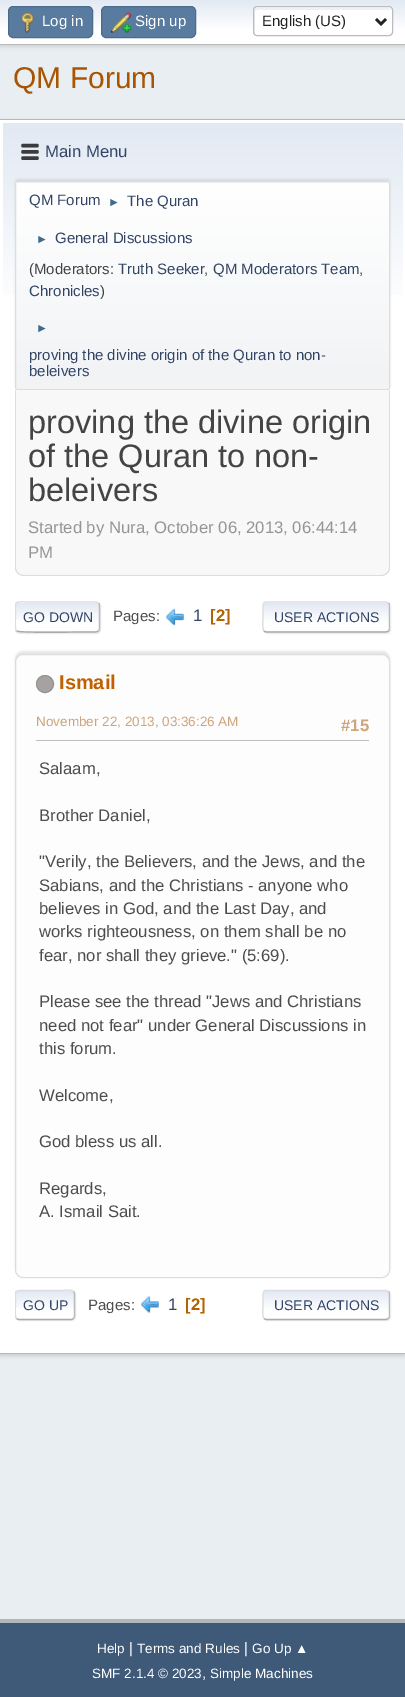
%!PS
<< /PageSize [405 1697] /PageUsesTransparency true >> setpagedevice
/m/moveto load def
/l/rlineto load def
/c/rcurveto load def
/z/closepath load def
/f/fill load def
/s/stroke load def
/q/gsave load def
/Q_/grestore load def
/w/setlinewidth load def
/C { dup -16 bitshift 255 div exch dup -8 bitshift 255 and 255 div exch 255 and 255 div setrgbcolor } def
/F { [ exch dup neg 0 0 3 -1 roll 0 0 ] selectfont } def
/T { moveto show } def
/R { rectfill } def
/A { dup .setfillconstantalpha .setstrokeconstantalpha } def
/O { newpath 0 360 arc closepath } def
/Q { 5 dict begin { /r /h /w /y /x } { exch def } forall
  x r add y moveto x w add y 2 copy h add r arct x w add y h add x 1 index r arct
  x y h add x y r arct x y 2 copy exch w add exch r arct closepath end } def
/S { 12 dict begin { /a /b /q /h /w /y /x } { exch def } forall gsave /was 0 def
  9 -2 -9 { dup b mul 4 div /e exch def 1 sub .425 mul 2.718 exch exp 1 add a .99 .min exch div /now exch def
    1 1 now sub 1 was sub div sub A /was now def
    w h .min e 2 mul add 0 gt { x e sub y e sub w e 2 mul add h e 2 mul add
      q e add b .6 mul add w h .min 2 div e add .min 0 .max Q fill } if } for grestore end } def
/I { 5 dict begin { /h /w /y /x /name } { exch def } forall
  gsave x y translate w h scale
  w h 8 [w 0 0 h 0 0] name (r) file false 3 colorimage grestore end } def
0 .pushpdf14devicefilter
0 1697 translate 1 -1 scale
4 setmiterlimit
16#E9EEF2 C
0 0 405 1697 R
16#000000 C
0 1 405 45 0 2.5 .16 S
q 0 0 m 405 0 l 0 44 l -405 0 l z clip newpath
<< /ShadingType 2 /ColorSpace /DeviceRGB /Coords [203 0 203 44] /Extend [true true] /Function << /FunctionType 3 /Domain [0 1] /Functions [<< /FunctionType 2 /Domain [0 1] /C0 [.886 .914 .953] /C1 [1 1 1] /N 1 >> << /FunctionType 2 /Domain [0 1] /C0 [1 1 1] /C1 [1 1 1] /N 1 >>] /Bounds [.7] /Encode [0 1 0 1] >> >> shfill Q_
16#BBBBBB C
0 44 405 1 R
16#597B9F C
8.5 6.5 84 31 4.5 Q q f Q_
16#4A6B8C C
s
(1.rgb) 21 12 13 21 I
/LiberationSans-Regular 15 F
16#FFFFFF C
(Log in) 42 26 T
16#597B9F C
101.5 6.5 94 31 4.5 Q q f Q_
16#4A6B8C C
s
(2.rgb) 111 12 21 21 I
16#FFFFFF C
(Sign up) 135 26 T
253 6 140 30 4 Q f
16#ECF1F8 C
258 10 m 133 0 l 0 -1 -1 -2 -3 -2 c -132 0 l -1 0 -2 1 -2 2 c 0 22 l 0 1 0 2 1 3 c 0 -23 l 0 -1 1 -2 3 -2 c z f
16#BBBBBB C
253.5 6.5 139 29 3.5 Q s
16#222222 C
2.5 w
376 19 m 5 5 l 5 -5 l s
(English \(US\)) 262 26 T
/LiberationSans-Regular 30 F
16#A85400 C
(QM Forum) 13 88 T
16#000000 C
0 121 405 1235 0 2 .14 S
16#FFFFFF C
0 120 405 1233 R
16#B8B8B8 C
0 119 405 1 R
0 1353 405 1 R
q 3 123 m 400 0 l 0 172 l -400 0 l z clip newpath
<< /ShadingType 2 /ColorSpace /DeviceRGB /Coords [203 122 203 393] /Extend [true true] /Function << /FunctionType 3 /Domain [0 1] /Functions [<< /FunctionType 2 /Domain [0 1] /C0 [.886 .914 .953] /C1 [1 1 1] /N 1 >> << /FunctionType 2 /Domain [0 1] /C0 [1 1 1] /C1 [1 1 1] /N 1 >>] /Bounds [.7] /Encode [0 1 0 1] >> >> shfill Q_
(3.rgb) 21 143 18 17 I
/LiberationSans-Regular 16.7 F
16#334466 C
(Main Menu) 45 157 T
16#000000 C
15 179 375 209 2.5 1 .08 S
q
15 181 375 209 2.5 Q clip newpath
q 15 181 m 375 0 l 0 2 l -375 0 l z clip newpath
<< /ShadingType 2 /ColorSpace /DeviceRGB /Coords [203 -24 203 183] /Extend [true true] /Function << /FunctionType 3 /Domain [0 1] /Functions [<< /FunctionType 2 /Domain [0 1] /C0 [1 1 1] /C1 [.945 .953 .961] /N 1 >> << /FunctionType 2 /Domain [0 1] /C0 [.945 .953 .961] /C1 [.945 .953 .961] /N 1 >>] /Bounds [.95] /Encode [0 1 0 1] >> >> shfill Q_
Q_
q 15 183 m 375 0 l 0 206 l -375 0 l z clip newpath
<< /ShadingType 2 /ColorSpace /DeviceRGB /Coords [203 183 203 389] /Extend [true true] /Function << /FunctionType 3 /Domain [0 1] /Functions [<< /FunctionType 2 /Domain [0 1] /C0 [1 1 1] /C1 [.945 .953 .961] /N 1 >> << /FunctionType 2 /Domain [0 1] /C0 [.945 .953 .961] /C1 [.945 .953 .961] /N 1 >>] /Bounds [.95] /Encode [0 1 0 1] >> >> shfill Q_
16#DDDDDD C
1 w
15.5 181.5 374 208 2 Q s
/LiberationSans-Regular 15 F
16#334466 C
(QM Forum) 29 205 T
/LiberationSans-Regular 12 F
16#3F6B8C C
(►) 108 206 T
/LiberationSans-Regular 15 F
16#334466 C
(The Quran) 127 206 T
/LiberationSans-Regular 12 F
16#3F6B8C C
(►) 36 243 T
/LiberationSans-Regular 15 F
16#334466 C
(General Discussions) 55 243 T
16#444444 C
(\(Moderators:) 29 274 T
16#334466 C
(Truth Seeker) 118 274 T
16#444444 C
(,) 204 274 T
16#334466 C
(QM Moderators Team) 213 274 T
16#444444 C
(,) 359 274 T
16#334466 C
(Chronicles) 29 296 T
16#444444 C
(\)) 100 296 T
/LiberationSans-Regular 12 F
16#3F6B8C C
(►) 36 332 T
/LiberationSans-Regular 15 F
16#334466 C
(proving the divine origin of the Quran to non-) 29 360 T
(beleivers) 29 376 T
16#F8F8F8 C
15 390 m 375 0 l 0 177 l 0 5 -4 9 -9 9 c -357 0 l -5 0 -9 -4 -9 -9 c z f
16#DDDDDD C
15 390 m 375 0 l 0 178 l 0 4 -4 8 -9 8 c -357 0 l -5 0 -9 -4 -9 -8 c z 16 390 m 373 0 l 0 178 l 0 4 -4 7 -8 7 c -357 0 l -4 0 -8 -3 -8 -7 c z eofill
/LiberationSans-Regular 32.5 F
16#444444 C
(proving the divine origin) 28 433 T
(of the Quran to non-) 28 467 T
(beleivers) 28 501 T
/LiberationSans-Regular 16.7 F
16#959595 C
(Started by Nura, October 06, 2013, 06:44:14) 28 533 T
(PM) 28 558 T
16#DDDDDD C
16 603 85 31 4 .5 .57 S
16#FFFFFF C
15 601 85 32 4 Q f
q
15 601 85 32 4 Q clip newpath
q 15 603 m 85 0 l 0 28 l -85 0 l z clip newpath
<< /ShadingType 2 /ColorSpace /DeviceRGB /Coords [58 603 58 631] /Extend [true true] /Function << /FunctionType 3 /Domain [0 1] /Functions [<< /FunctionType 2 /Domain [0 1] /C0 [.886 .914 .953] /C1 [1 1 1] /N 1 >> << /FunctionType 2 /Domain [0 1] /C0 [1 1 1] /C1 [1 1 1] /N 1 >>] /Bounds [.7] /Encode [0 1 0 1] >> >> shfill Q_
q 15 631 m 85 0 l 0 2 l -85 0 l z clip newpath
<< /ShadingType 2 /ColorSpace /DeviceRGB /Coords [58 631 58 660] /Extend [true true] /Function << /FunctionType 3 /Domain [0 1] /Functions [<< /FunctionType 2 /Domain [0 1] /C0 [.886 .914 .953] /C1 [1 1 1] /N 1 >> << /FunctionType 2 /Domain [0 1] /C0 [1 1 1] /C1 [1 1 1] /N 1 >>] /Bounds [.7] /Encode [0 1 0 1] >> >> shfill Q_
Q_
16#BBBBBB C
1.2 w
98.5 603 m .5 .5 1 1 1 2 c 0 24 l 0 .5 -.5 1.5 -1 2 c s
16#AAAAAA C
98.5 631 m -2.5 1 l -12.5 0 l -7.5 0 -64.5 1 -66.5 -1 c -.5 0 l s
q
15 595 375 44 rectclip
16#DDDDDD C
16.5 631 m -2 -2 -1 -11.5 -1 -14 c 0 -18 -2.5 -15 16 -15 c 64.5 0 l 2.5 1 l s
Q_
/LiberationSans-Regular 14 F
16#334466 C
(GO DOWN) 23 622 T
/LiberationSans-Regular 15 F
16#4D4D4D C
(Pages:) 113 621 T
(4.rgb) 166 608 18 18 I
/LiberationSans-Regular 16.7 F
16#334466 C
(1) 193 621 T
/LiberationSans-Bold 16.7 F
16#B46100 C
([2]) 210 621 T
16#DDDDDD C
264 603 127 31 4 .5 .57 S
16#FFFFFF C
263 601 127 32 4 Q f
q
263 601 127 32 4 Q clip newpath
q 263 603 m 127 0 l 0 28 l -127 0 l z clip newpath
<< /ShadingType 2 /ColorSpace /DeviceRGB /Coords [326 603 326 631] /Extend [true true] /Function << /FunctionType 3 /Domain [0 1] /Functions [<< /FunctionType 2 /Domain [0 1] /C0 [.886 .914 .953] /C1 [1 1 1] /N 1 >> << /FunctionType 2 /Domain [0 1] /C0 [1 1 1] /C1 [1 1 1] /N 1 >>] /Bounds [.7] /Encode [0 1 0 1] >> >> shfill Q_
q 263 631 m 127 0 l 0 2 l -127 0 l z clip newpath
<< /ShadingType 2 /ColorSpace /DeviceRGB /Coords [326 631 326 660] /Extend [true true] /Function << /FunctionType 3 /Domain [0 1] /Functions [<< /FunctionType 2 /Domain [0 1] /C0 [.886 .914 .953] /C1 [1 1 1] /N 1 >> << /FunctionType 2 /Domain [0 1] /C0 [1 1 1] /C1 [1 1 1] /N 1 >>] /Bounds [.7] /Encode [0 1 0 1] >> >> shfill Q_
Q_
q
15 595 375 44 rectclip
16#BBBBBB C
388.5 603 m .5 .5 1 1 1 2 c 0 24 l 0 .5 -.5 1.5 -1 2 c s
Q_
16#AAAAAA C
388.5 631 m -2.5 1 l -120 0 l -2 -1 l s
16#DDDDDD C
264 631 m -2 -2 -1 -11.5 -1 -14 c 0 -8 l 0 -2.5 -.5 -7 3 -7 c 120 0 l 2.5 1 l s
/LiberationSans-Regular 14 F
16#334466 C
(USER ACTIONS) 274 622 T
16#000000 C
15 651 375 624 8 1 .1 S
16#FDFDFD C
15.5 654.5 374 623 7.5 Q q f Q_
16#DDDDDD C
1 w
s
16#A7A2A2 C
45 684 8.5 O q f Q_
16#969292 C
s
/LiberationSans-Bold 20 F
16#C06002 C
(Ismail) 59 689 T
/LiberationSans-Regular 13.5 F
16#CDA47B C
(November 22, 2013, 03:36:26 AM) 36 726 T
/LiberationSans-Bold 16.7 F
(#15) 341 731 T
16#BFBFBF C
36 740 333 1 R
/LiberationSans-Regular 16.7 F
16#4D4D4D C
(Salaam,) 39 774 T
(Brother Daniel,) 39 821 T
("Verily, the Believers, and the Jews, and the) 39 867 T
(Sabians, and the Christians - anyone who) 39 891 T
(believes in God, and the Last Day, and) 39 914 T
(works righteousness, on them shall be no) 39 937 T
(fear, nor shall they grieve." \(5:69\).) 39 961 T
(Please see the thread "Jews and Christians) 39 1007 T
(need not fear" under General Discussions in) 39 1031 T
(this forum.) 39 1054 T
(Welcome,) 39 1101 T
(God bless us all.) 39 1147 T
(Regards,) 39 1194 T
(A. Ismail Sait.) 39 1217 T
16#DDDDDD C
16 1291 60 30 4 .5 .57 S
16#FFFFFF C
15 1290 60 30 4 Q f
q
15 1290 60 30 4 Q clip newpath
q 15 1291 m 60 0 l 0 28 l -60 0 l z clip newpath
<< /ShadingType 2 /ColorSpace /DeviceRGB /Coords [45 1291 45 1319] /Extend [true true] /Function << /FunctionType 3 /Domain [0 1] /Functions [<< /FunctionType 2 /Domain [0 1] /C0 [.886 .914 .953] /C1 [1 1 1] /N 1 >> << /FunctionType 2 /Domain [0 1] /C0 [1 1 1] /C1 [1 1 1] /N 1 >>] /Bounds [.7] /Encode [0 1 0 1] >> >> shfill Q_
Q_
16#BBBBBB C
1.2 w
73.5 1291.5 m .5 .5 1 1.5 1 2.5 c 0 22 l 0 1 -.5 2 -1 2.5 c s
16#AAAAAA C
73.5 1318.5 m -2 1 l -53 0 l -2 -1 l s
q
15 1284 375 42 rectclip
16#DDDDDD C
16.5 1318.5 m -2 -2 -1 -11 -1 -13.5 c 0 -15.5 -3 -14.5 12 -14.5 c 35 0 l 0 0 8.5 -1.5 11 1 c s
Q_
/LiberationSans-Regular 14 F
16#334466 C
(GO UP) 23 1310 T
/LiberationSans-Regular 15 F
16#4D4D4D C
(Pages:) 88 1310 T
(5.rgb) 141 1296 18 17 I
/LiberationSans-Regular 16.7 F
16#334466 C
(1) 168 1310 T
/LiberationSans-Bold 16.7 F
16#B46100 C
([2]) 185 1310 T
16#DDDDDD C
264 1291 127 30 4 .5 .57 S
16#FFFFFF C
263 1290 127 30 4 Q f
q
263 1290 127 30 4 Q clip newpath
q 263 1291 m 127 0 l 0 28 l -127 0 l z clip newpath
<< /ShadingType 2 /ColorSpace /DeviceRGB /Coords [326 1291 326 1319] /Extend [true true] /Function << /FunctionType 3 /Domain [0 1] /Functions [<< /FunctionType 2 /Domain [0 1] /C0 [.886 .914 .953] /C1 [1 1 1] /N 1 >> << /FunctionType 2 /Domain [0 1] /C0 [1 1 1] /C1 [1 1 1] /N 1 >>] /Bounds [.7] /Encode [0 1 0 1] >> >> shfill Q_
Q_
q
15 1284 375 42 rectclip
16#BBBBBB C
388.5 1291.5 m .5 .5 1 1.5 1 2.5 c 0 22 l 0 1 -.5 2 -1 2.5 c s
Q_
16#AAAAAA C
388.5 1318.5 m -2.5 1 l -120 0 l -2 -1 l s
16#DDDDDD C
264 1318.5 m -2 -2 -1 -11 -1 -13.5 c 0 -7.5 l 0 -2.5 -.5 -7 3 -7 c 120 0 l 2.5 1 l s
/LiberationSans-Regular 14 F
16#334466 C
(USER ACTIONS) 274 1310 T
16#3E5A78 C
0 1623 405 74 R
16#B2B6BD C
0 1619 405 4 R
/LiberationSans-Regular 13.5 F
16#FFFFFF C
(Help) 97 1653 T
/LiberationSans-Regular 15 F
(|) 129 1653 T
/LiberationSans-Regular 13.5 F
(Terms and Rules) 137 1653 T
/LiberationSans-Regular 15 F
(|) 244 1653 T
/LiberationSans-Regular 13.5 F
(Go Up ▲) 252 1653 T
(SMF 2.1.4 © 2023) 92 1678 T
/LiberationSans-Regular 15 F
(,) 202 1678 T
/LiberationSans-Regular 13.5 F
(Simple Machines) 210 1678 T
.poppdf14devicefilter showpage
